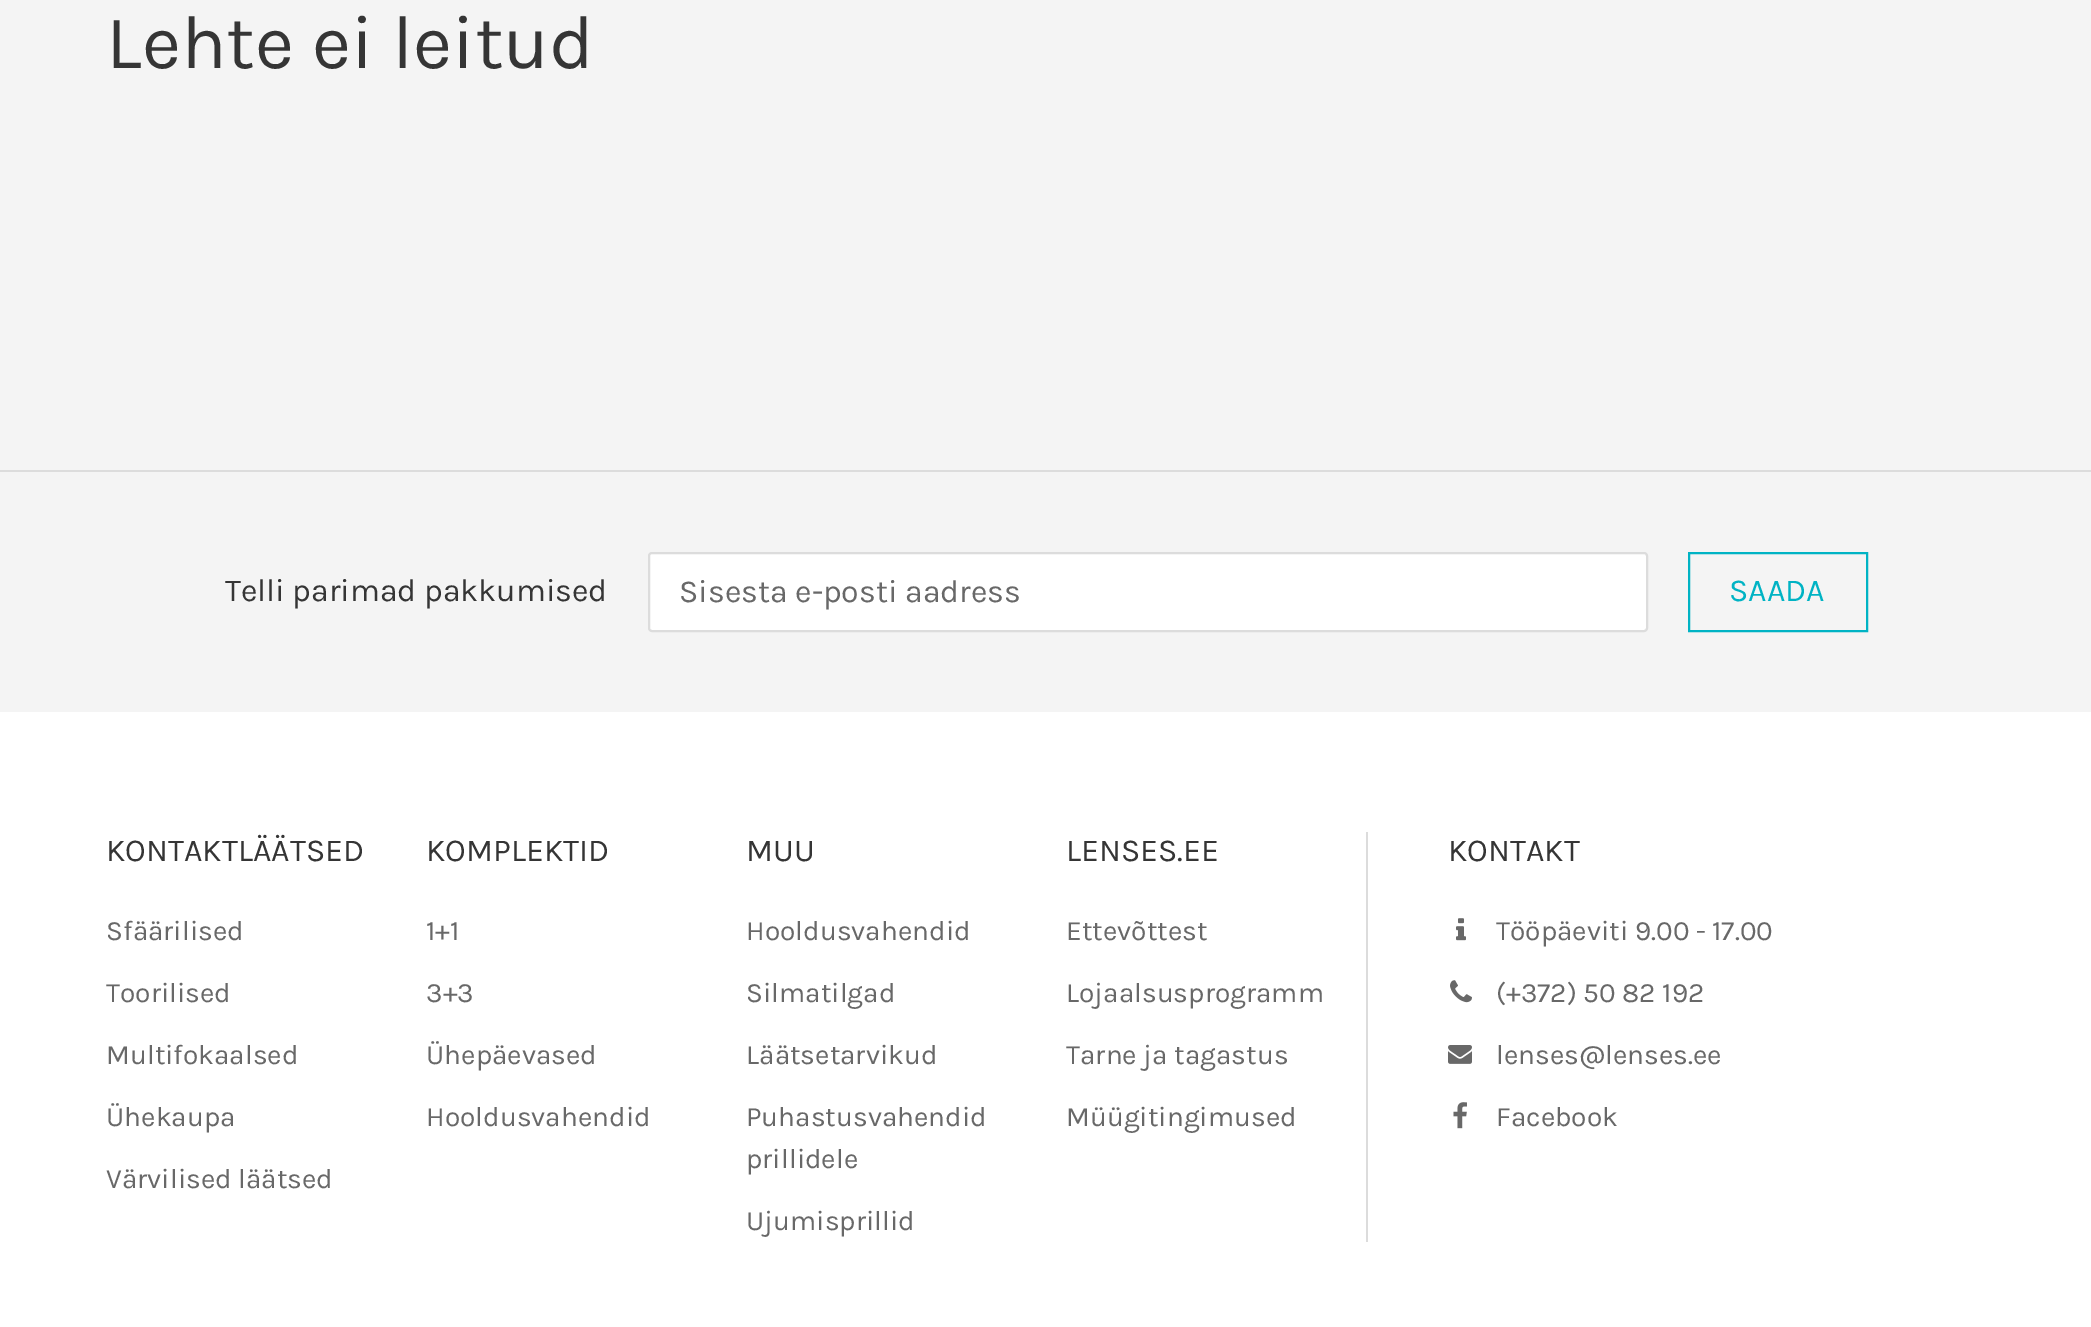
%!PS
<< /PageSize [2091 1327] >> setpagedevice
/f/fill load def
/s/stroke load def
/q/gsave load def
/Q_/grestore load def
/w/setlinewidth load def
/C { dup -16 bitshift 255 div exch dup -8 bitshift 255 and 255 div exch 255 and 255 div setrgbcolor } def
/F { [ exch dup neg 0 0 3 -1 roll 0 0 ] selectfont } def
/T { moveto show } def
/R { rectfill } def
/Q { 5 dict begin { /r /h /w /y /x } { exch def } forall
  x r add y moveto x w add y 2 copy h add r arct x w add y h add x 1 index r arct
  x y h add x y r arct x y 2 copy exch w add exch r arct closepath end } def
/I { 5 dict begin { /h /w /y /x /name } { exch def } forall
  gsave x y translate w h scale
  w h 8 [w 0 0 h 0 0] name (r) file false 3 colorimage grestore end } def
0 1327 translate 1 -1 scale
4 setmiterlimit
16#F4F4F4 C
0 0 2091 1327 R
/Karla-Regular 76 F
16#353535 C
(Lehte ei leitud) 106 68 T
16#DCDCDC C
0 470 2091 2 R
/Karla-Regular 32 F
16#353535 C
(Telli parimad pakkumised) 225 601 T
16#FFFFFF C
649 553 998 78 3 Q q f Q_
16#DCDCDC C
2 w
s
16#686868 C
(Sisesta e-posti aadress) 679 602 T
16#00B3C4 C
1689 553 178 78 rectstroke
(SAADA) 1729 601 T
16#FFFFFF C
0 712 2091 615 R
16#353535 C
(KONTAKTLÄÄTSED) 106 861 T
/Karla-Regular 28 F
16#686868 C
(Sfäärilised) 106 940 T
(Toorilised) 106 1002 T
(Multifokaalsed) 106 1064 T
(Ühekaupa) 106 1126 T
(Värvilised läätsed) 106 1188 T
/Karla-Regular 32 F
16#353535 C
(KOMPLEKTID) 426 861 T
/Karla-Regular 28 F
16#686868 C
(1+1) 426 940 T
(3+3) 426 1002 T
(Ühepäevased) 426 1064 T
(Hooldusvahendid) 426 1126 T
/Karla-Regular 32 F
16#353535 C
(MUU) 746 861 T
/Karla-Regular 28 F
16#686868 C
(Hooldusvahendid) 746 940 T
(Silmatilgad) 746 1002 T
(Läätsetarvikud) 746 1064 T
(Puhastusvahendid) 746 1126 T
(prillidele) 746 1168 T
(Ujumisprillid) 746 1230 T
/Karla-Regular 32 F
16#353535 C
(LENSES.EE) 1066 861 T
/Karla-Regular 28 F
16#686868 C
(Ettevõttest) 1066 940 T
(Lojaalsusprogramm) 1066 1002 T
(Tarne ja tagastus) 1066 1064 T
(Müügitingimused) 1066 1126 T
16#DCDCDC C
1366 832 2 410 R
/Karla-Regular 32 F
16#353535 C
(KONTAKT) 1448 861 T
(1.rgb) 1456 918 10 23 I
/Karla-Regular 28 F
16#686868 C
(Tööpäeviti 9.00 - 17.00) 1496 940 T
(2.rgb) 1450 980 22 23 I
(\(+372\) 50 82 192) 1496 1002 T
(3.rgb) 1448 1045 24 19 I
(lenses@lenses.ee) 1496 1064 T
(4.rgb) 1453 1102 14 27 I
(Facebook) 1496 1126 T
showpage
